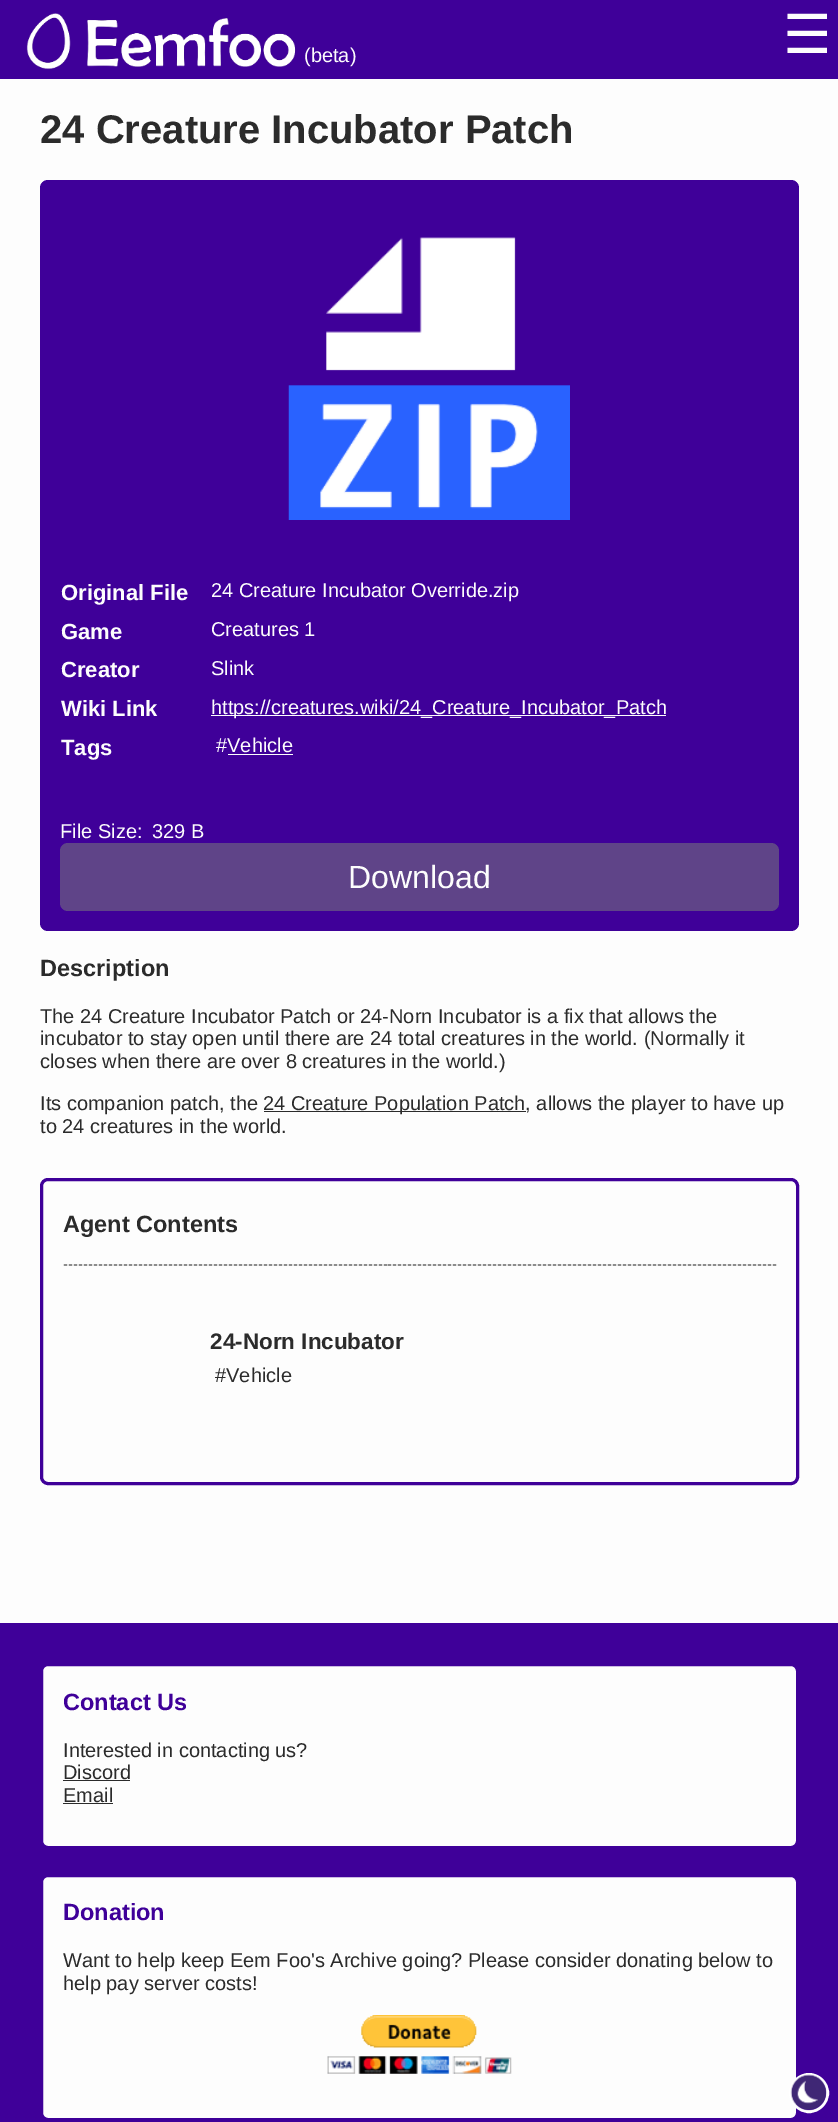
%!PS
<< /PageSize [838 2122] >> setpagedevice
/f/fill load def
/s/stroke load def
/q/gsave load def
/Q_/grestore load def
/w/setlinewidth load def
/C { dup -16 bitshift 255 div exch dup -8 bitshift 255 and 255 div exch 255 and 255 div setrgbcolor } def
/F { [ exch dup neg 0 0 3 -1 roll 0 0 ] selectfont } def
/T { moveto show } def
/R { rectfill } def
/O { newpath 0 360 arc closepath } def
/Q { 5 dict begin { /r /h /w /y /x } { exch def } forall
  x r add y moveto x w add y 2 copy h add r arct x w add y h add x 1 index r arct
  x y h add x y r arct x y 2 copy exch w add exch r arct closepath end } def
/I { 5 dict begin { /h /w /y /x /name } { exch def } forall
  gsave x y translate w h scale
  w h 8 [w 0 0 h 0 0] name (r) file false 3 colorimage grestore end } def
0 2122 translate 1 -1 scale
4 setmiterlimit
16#FDFDFD C
0 0 838 2122 R
16#3F0099 C
0 0 838 79 R
/DejaVuSans-Regular 54 F
16#FDFDFD C
(☰) 783 53 T
(1.rgb) 26 13 270 57 I
/LiberationSans-Regular 20 F
(\(beta\)) 304 62 T
/LiberationSans-Bold 40 F
16#2B2B2B C
(24 Creature Incubator Patch) 40 143 T
16#3F0099 C
40 180 759 751 8 Q f
(2.rgb) 288 237 282 283 I
/LiberationSans-Bold 22 F
16#FDFDFD C
(Original File) 61 600 T
/LiberationSans-Regular 20 F
(24 Creature Incubator Override.zip) 211 597 T
/LiberationSans-Bold 22 F
(Game) 61 639 T
/LiberationSans-Regular 20 F
(Creatures 1) 211 636 T
/LiberationSans-Bold 22 F
(Creator) 61 677 T
/LiberationSans-Regular 20 F
(Slink) 211 675 T
/LiberationSans-Bold 22 F
(Wiki Link) 61 716 T
211 715 455 1 R
/LiberationSans-Regular 20 F
(https://creatures.wiki/24_Creature_Incubator_Patch) 211 714 T
/LiberationSans-Bold 22 F
(Tags) 61 755 T
/LiberationSans-Regular 20 F
(#Vehicle) 216 752 T
228 754 65 1 R
(File Size:) 60 838 T
(329 B) 152 838 T
16#5F4488 C
60 843 719 68 8 Q f
/LiberationSans-Regular 32 F
16#FDFDFD C
(Download) 348 888 T
/LiberationSans-Bold 23.5 F
16#2B2B2B C
(Description) 40 976 T
/LiberationSans-Regular 20 F
(The 24 Creature Incubator Patch or 24-Norn Incubator is a fix that allows the) 40 1023 T
(incubator to stay open until there are 24 total creatures in the world. \(Normally it) 40 1045 T
(closes when there are over 8 creatures in the world.\)) 40 1068 T
(Its companion patch, the) 40 1110 T
264 1111 262 1 R
(24 Creature Population Patch, allows the player to have up) 263 1110 T
(to 24 creatures in the world.) 40 1133 T
16#3F0099 C
3 w
41.5 1179.5 756 304 6.5 Q s
/LiberationSans-Bold 23.5 F
16#2B2B2B C
(Agent Contents) 63 1232 T
/LiberationSans-Regular 15 F
(-----------------------------------------------------------------------------------------------------------------------------------------------) 63 1269 T
/LiberationSans-Bold 22.5 F
(24-Norn Incubator) 210 1349 T
/LiberationSans-Regular 20 F
(#Vehicle) 215 1382 T
16#3F0099 C
0 1623 838 499 R
16#FDFDFD C
41.5 1875.5 756 244 6.5 Q q f Q_
16#3F0099 C
s
16#FFFFFF C
809 2093 18.5 O s
(3.rgb) 790 2074 37 37 I
16#FDFDFD C
41.5 1664.5 756 183 6.5 Q q f Q_
16#3F0099 C
s
/LiberationSans-Bold 23.5 F
(Contact Us) 63 1710 T
/LiberationSans-Regular 20 F
16#2B2B2B C
(Interested in contacting us?) 63 1757 T
(Discord) 63 1779 T
63 1780 67 1 R
(Email) 63 1802 T
63 1803 50 1 R
/LiberationSans-Bold 23.5 F
16#3F0099 C
(Donation) 63 1920 T
/LiberationSans-Regular 20 F
16#2B2B2B C
(Want to help keep Eem Foo's Archive going? Please consider donating below to) 63 1967 T
(help pay server costs!) 63 1990 T
(4.rgb) 327 2015 185 59 I
showpage
